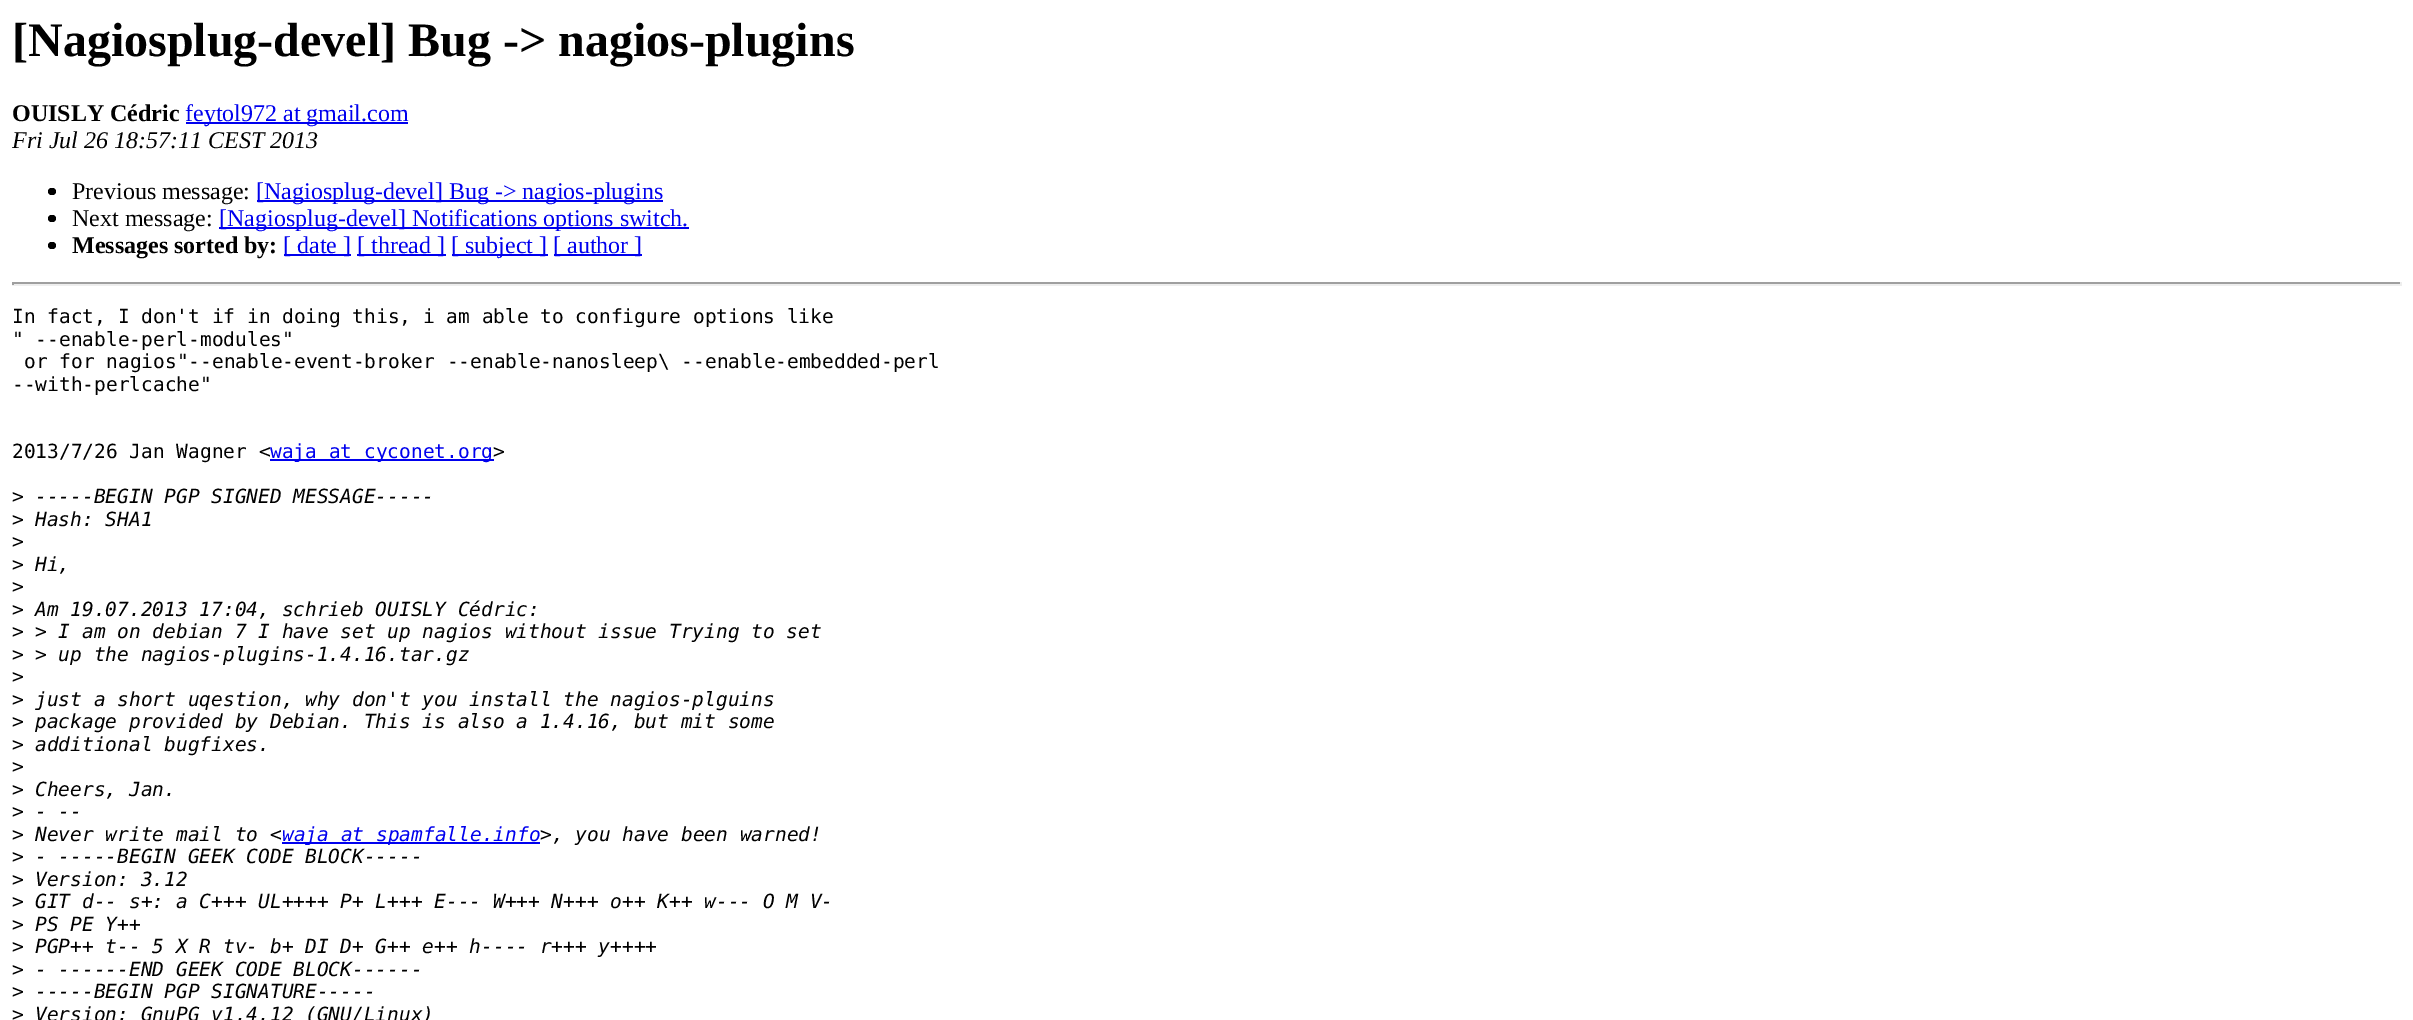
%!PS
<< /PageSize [2413 1020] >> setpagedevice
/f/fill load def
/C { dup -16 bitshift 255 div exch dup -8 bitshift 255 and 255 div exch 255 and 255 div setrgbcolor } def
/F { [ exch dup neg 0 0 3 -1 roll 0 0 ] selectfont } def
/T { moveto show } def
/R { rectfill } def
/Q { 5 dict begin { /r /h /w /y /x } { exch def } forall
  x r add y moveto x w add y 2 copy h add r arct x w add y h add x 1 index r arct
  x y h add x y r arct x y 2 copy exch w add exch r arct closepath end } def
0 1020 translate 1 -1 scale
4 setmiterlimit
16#FFFFFF C
0 0 2413 1020 R
/LiberationSerif-Bold 48 F
16#000000 C
([Nagiosplug-devel] Bug -> nagios-plugins) 12 56 T
/LiberationSerif-Bold 24 F
(OUISLY Cédric) 12 121 T
16#0000EE C
186 122 222 2 R
/LiberationSerif-Regular 24 F
(feytol972 at gmail.com) 185 121 T
/LiberationSerif-Italic 24 F
16#000000 C
(Fri Jul 26 18:57:11 CEST 2013) 12 148 T
48 188 8 7 3.5 Q f
/LiberationSerif-Regular 24 F
(Previous message:) 72 199 T
16#0000EE C
257 200 406 2 R
([Nagiosplug-devel] Bug -> nagios-plugins) 256 199 T
16#000000 C
48 215 8 7 3.5 Q f
(Next message:) 72 226 T
16#0000EE C
219 227 470 2 R
([Nagiosplug-devel] Notifications options switch.) 219 226 T
16#000000 C
48 242 8 7 3.5 Q f
/LiberationSerif-Bold 24 F
(Messages sorted by:) 72 253 T
16#0000EE C
284 254 67 2 R
/LiberationSerif-Regular 24 F
([ date ]) 283 253 T
357 254 89 2 R
([ thread ]) 357 253 T
452 254 96 2 R
([ subject ]) 451 253 T
554 254 88 2 R
([ author ]) 553 253 T
16#9F9F9F C
12 282 2390 2 R
16#EEEEEE C
2400 282 2 3 R
12 284 2390 2 R
16#9F9F9F C
12 282 2 3 R
/DejaVuSansMono-Regular 19.5 F
16#000000 C
(In fact, I don't if in doing this, i am able to configure options like) 12 323 T
(" --enable-perl-modules") 12 346 T
(or for nagios"--enable-event-broker --enable-nanosleep\\ --enable-embedded-perl) 24 368 T
(--with-perlcache") 12 391 T
(2013/7/26 Jan Wagner <) 12 458 T
16#0000EE C
270 459 224 2 R
(waja at cyconet.org) 270 458 T
16#000000 C
(>) 493 458 T
(>) 12 503 T
/DejaVuSansMono-Italic 19.5 F
(-----BEGIN PGP SIGNED MESSAGE-----) 35 503 T
/DejaVuSansMono-Regular 19.5 F
(>) 12 526 T
/DejaVuSansMono-Italic 19.5 F
(Hash: SHA1) 35 526 T
/DejaVuSansMono-Regular 19.5 F
(>) 12 548 T
(>) 12 571 T
/DejaVuSansMono-Italic 19.5 F
(Hi,) 35 571 T
/DejaVuSansMono-Regular 19.5 F
(>) 12 593 T
(>) 12 616 T
/DejaVuSansMono-Italic 19.5 F
(Am 19.07.2013 17:04, schrieb OUISLY Cédric:) 35 616 T
/DejaVuSansMono-Regular 19.5 F
(>) 12 638 T
/DejaVuSansMono-Italic 19.5 F
(> I am on debian 7 I have set up nagios without issue Trying to set) 35 638 T
/DejaVuSansMono-Regular 19.5 F
(>) 12 661 T
/DejaVuSansMono-Italic 19.5 F
(> up the nagios-plugins-1.4.16.tar.gz) 35 661 T
/DejaVuSansMono-Regular 19.5 F
(>) 12 683 T
(>) 12 706 T
/DejaVuSansMono-Italic 19.5 F
(just a short uqestion, why don't you install the nagios-plguins) 35 706 T
/DejaVuSansMono-Regular 19.5 F
(>) 12 728 T
/DejaVuSansMono-Italic 19.5 F
(package provided by Debian. This is also a 1.4.16, but mit some) 35 728 T
/DejaVuSansMono-Regular 19.5 F
(>) 12 751 T
/DejaVuSansMono-Italic 19.5 F
(additional bugfixes.) 35 751 T
/DejaVuSansMono-Regular 19.5 F
(>) 12 773 T
(>) 12 796 T
/DejaVuSansMono-Italic 19.5 F
(Cheers, Jan.) 35 796 T
/DejaVuSansMono-Regular 19.5 F
(>) 12 818 T
/DejaVuSansMono-Italic 19.5 F
(- --) 35 818 T
/DejaVuSansMono-Regular 19.5 F
(>) 12 841 T
/DejaVuSansMono-Italic 19.5 F
(Never write mail to <) 35 841 T
16#0000EE C
282 842 258 2 R
(waja at spamfalle.info) 282 841 T
16#000000 C
(>, you have been warned!) 540 841 T
/DejaVuSansMono-Regular 19.5 F
(>) 12 863 T
/DejaVuSansMono-Italic 19.5 F
(- -----BEGIN GEEK CODE BLOCK-----) 35 863 T
/DejaVuSansMono-Regular 19.5 F
(>) 12 886 T
/DejaVuSansMono-Italic 19.5 F
(Version: 3.12) 35 886 T
/DejaVuSansMono-Regular 19.5 F
(>) 12 908 T
/DejaVuSansMono-Italic 19.5 F
(GIT d-- s+: a C+++ UL++++ P+ L+++ E--- W+++ N+++ o++ K++ w--- O M V-) 35 908 T
/DejaVuSansMono-Regular 19.5 F
(>) 12 931 T
/DejaVuSansMono-Italic 19.5 F
(PS PE Y++) 35 931 T
/DejaVuSansMono-Regular 19.5 F
(>) 12 953 T
/DejaVuSansMono-Italic 19.5 F
(PGP++ t-- 5 X R tv- b+ DI D+ G++ e++ h---- r+++ y++++) 35 953 T
/DejaVuSansMono-Regular 19.5 F
(>) 12 976 T
/DejaVuSansMono-Italic 19.5 F
(- ------END GEEK CODE BLOCK------) 35 976 T
/DejaVuSansMono-Regular 19.5 F
(>) 12 998 T
/DejaVuSansMono-Italic 19.5 F
(-----BEGIN PGP SIGNATURE-----) 35 998 T
/DejaVuSansMono-Regular 19.5 F
(>) 12 1021 T
/DejaVuSansMono-Italic 19.5 F
(Version: GnuPG v1.4.12 \(GNU/Linux\)) 35 1021 T
showpage
